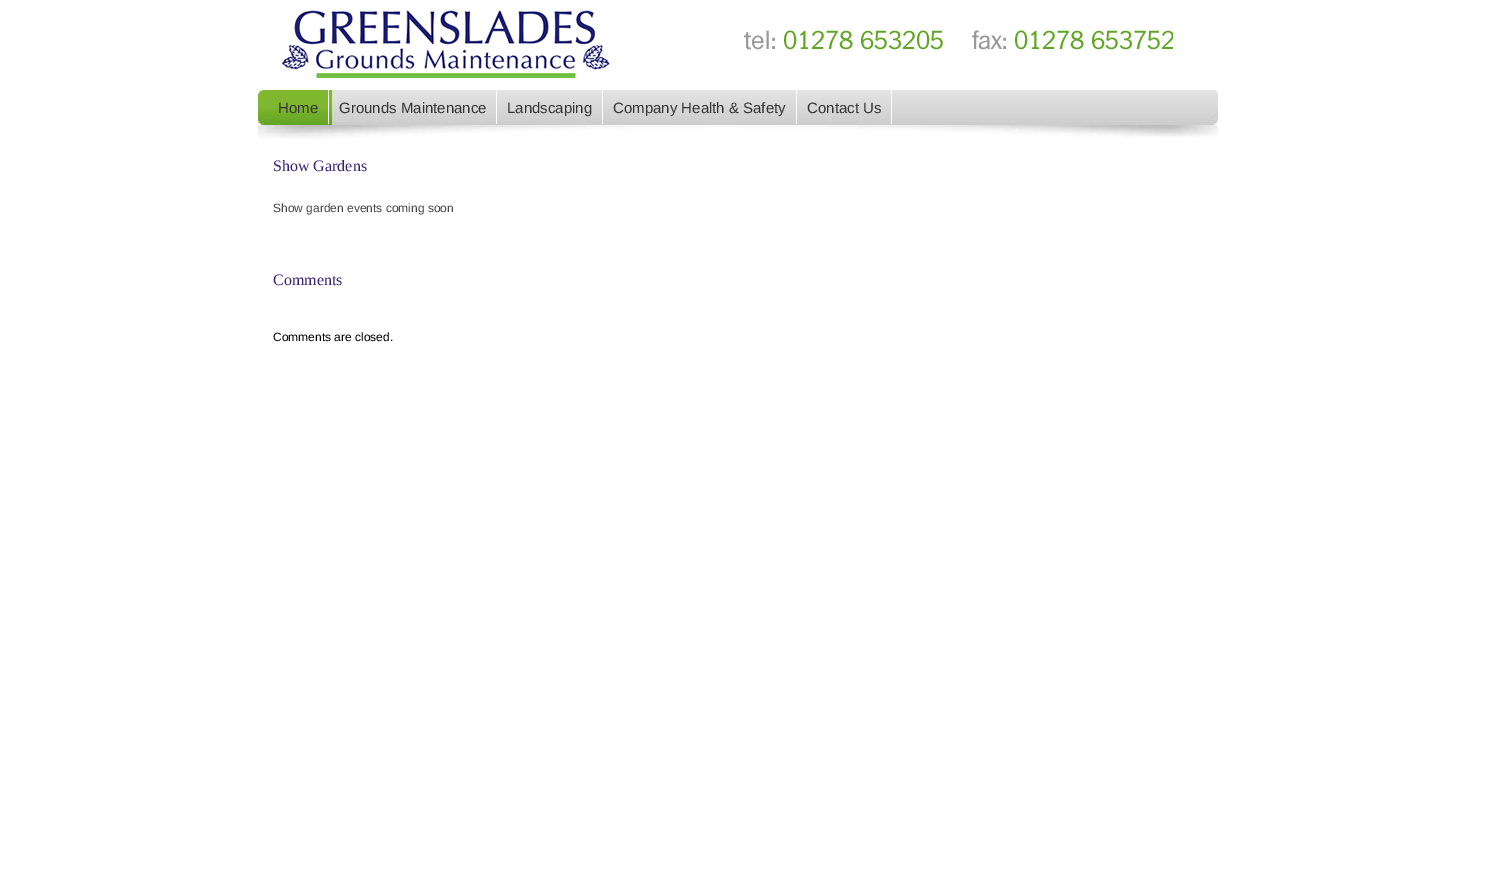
%!PS
<< /PageSize [1495 888] >> setpagedevice
/C { dup -16 bitshift 255 div exch dup -8 bitshift 255 and 255 div exch 255 and 255 div setrgbcolor } def
/F { [ exch dup neg 0 0 3 -1 roll 0 0 ] selectfont } def
/T { moveto show } def
/R { rectfill } def
/I { 5 dict begin { /h /w /y /x /name } { exch def } forall
  gsave x y translate w h scale
  w h 8 [w 0 0 h 0 0] name (r) file false 3 colorimage grestore end } def
0 888 translate 1 -1 scale
4 setmiterlimit
16#FFFFFF C
0 0 1495 888 R
(1.rgb) 282 10 328 68 I
(2.rgb) 744 30 429 20 I
(3.rgb) 258 90 960 35 I
328 90 1 34 R
/LiberationSans-Regular 15 F
16#333333 C
(Home) 278 113 T
16#FFFFFF C
496 90 1 34 R
16#333333 C
(Grounds Maintenance) 339 113 T
16#FFFFFF C
602 90 1 34 R
16#333333 C
(Landscaping) 507 113 T
16#FFFFFF C
796 90 1 34 R
16#333333 C
(Company Health & Safety) 613 113 T
16#FFFFFF C
891 90 1 34 R
16#333333 C
(Contact Us) 807 113 T
(4.rgb) 258 125 960 14 I
/LiberationSerif-Regular 16 F
16#352371 C
(Show Gardens) 273 171 T
/LiberationSans-Regular 12 F
16#454545 C
(Show garden events coming soon) 273 212 T
/LiberationSerif-Regular 16 F
16#352371 C
(Comments) 273 285 T
/LiberationSans-Regular 12 F
16#000000 C
(Comments are closed.) 273 341 T
showpage
